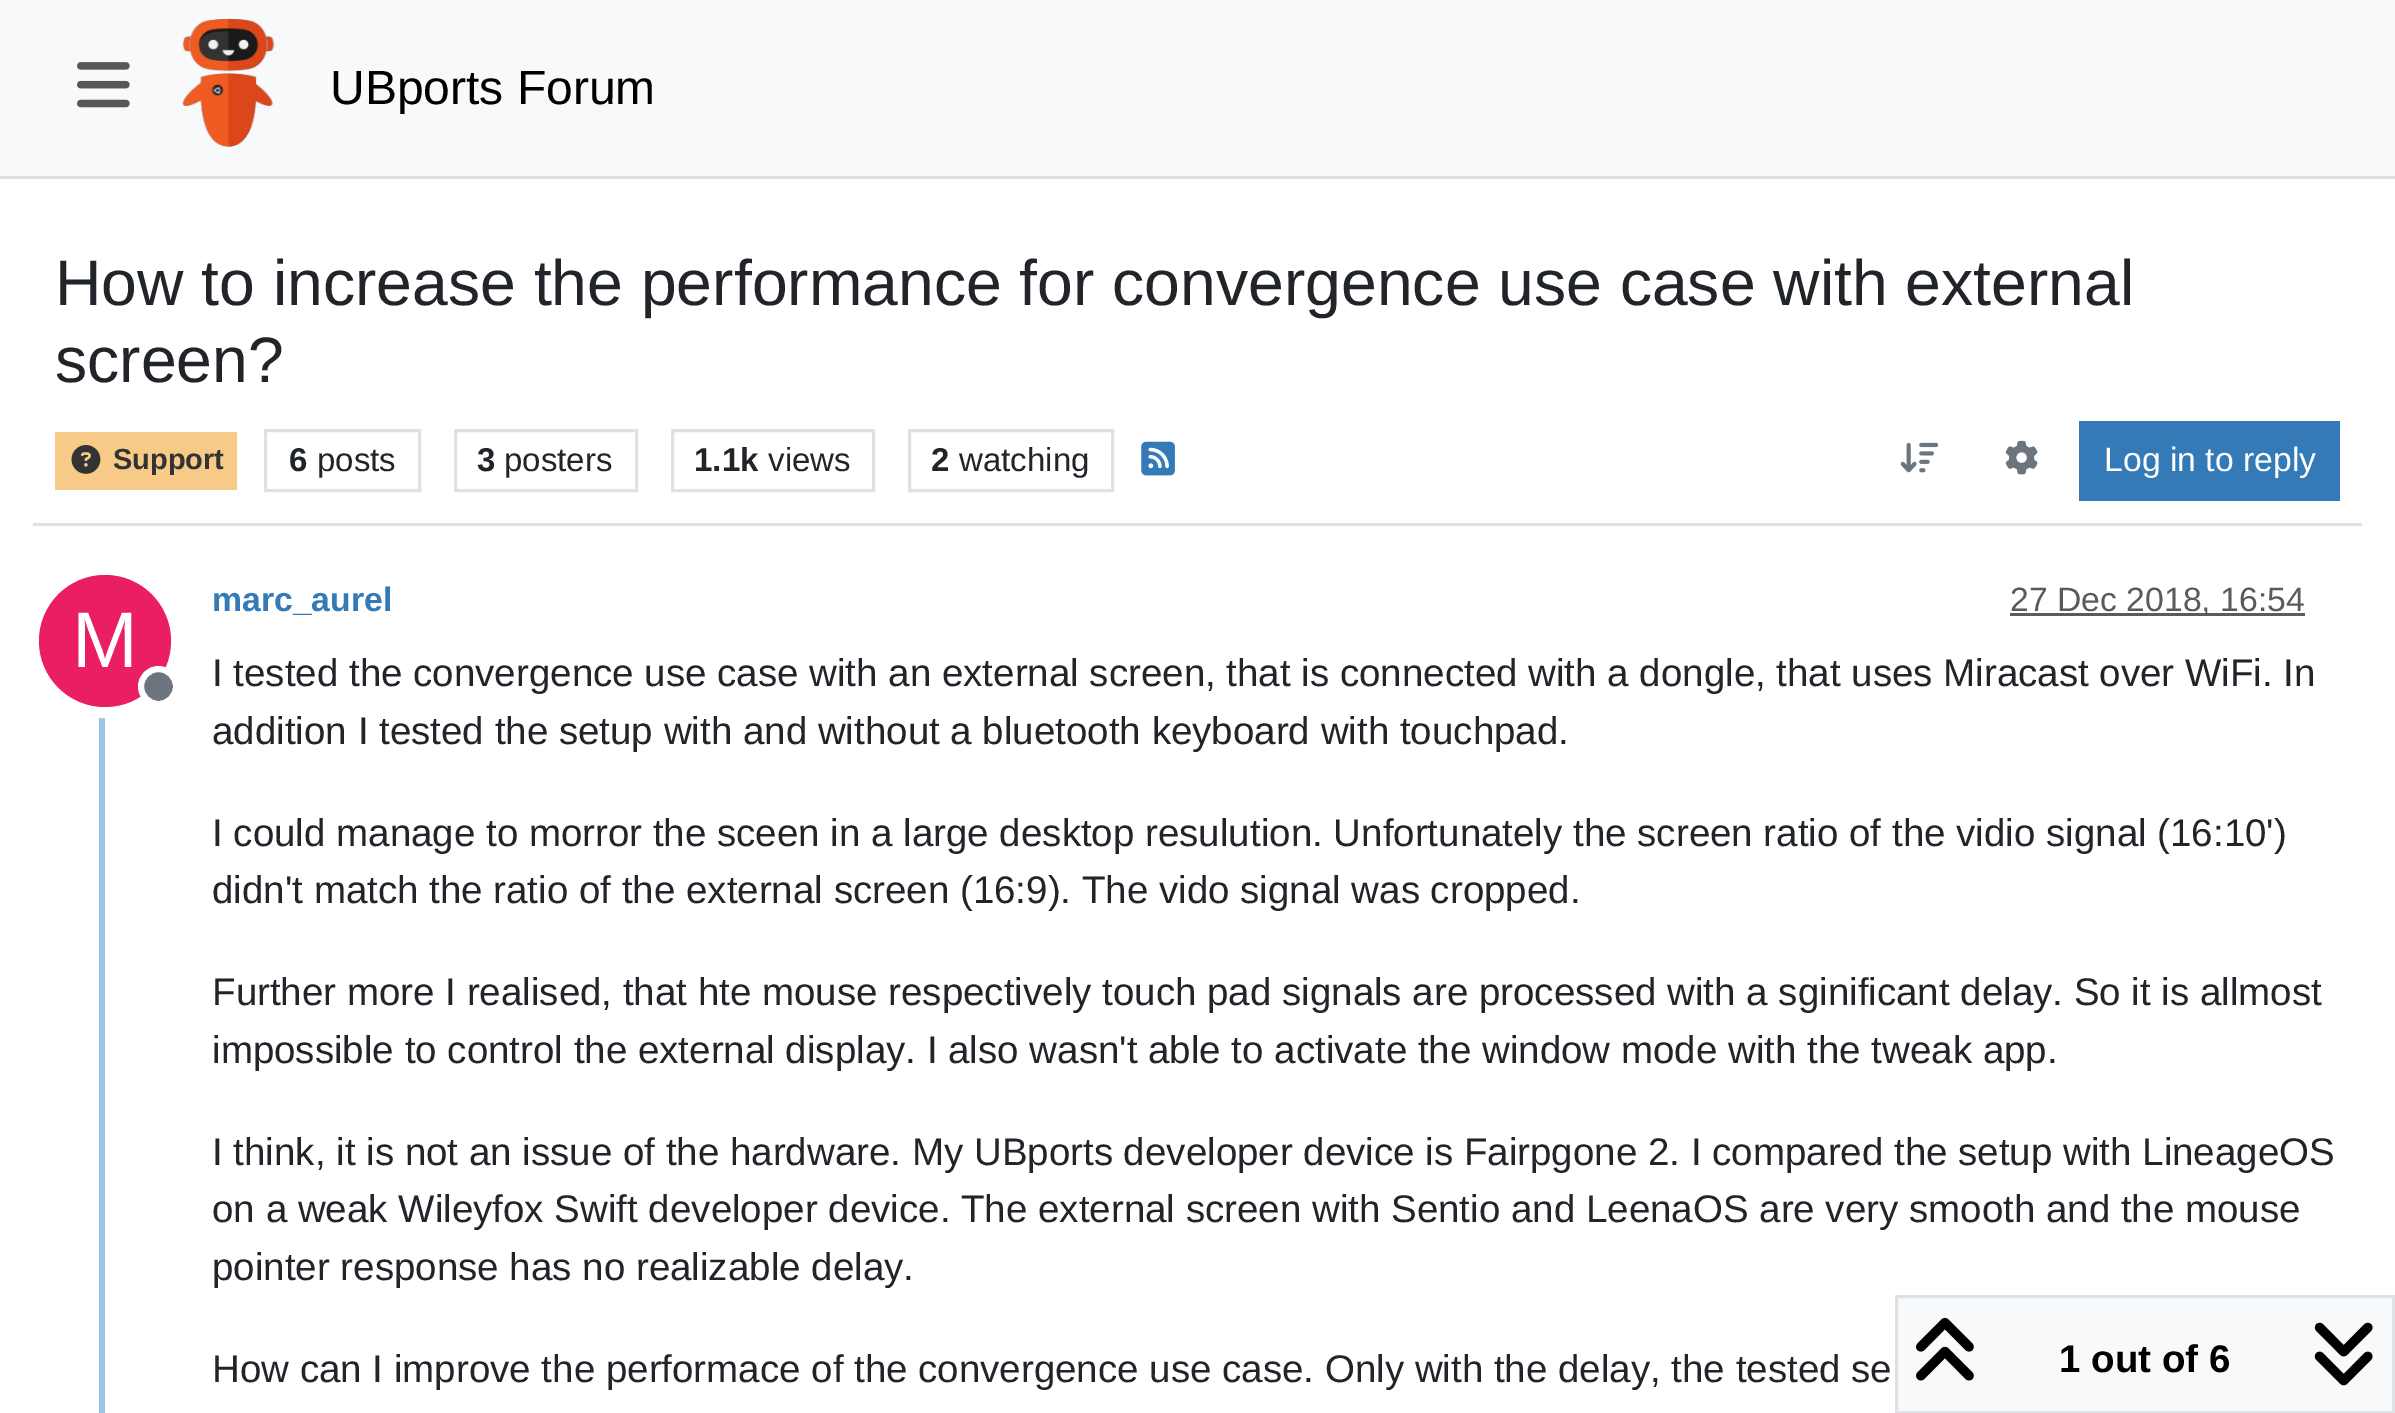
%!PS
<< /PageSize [2395 1413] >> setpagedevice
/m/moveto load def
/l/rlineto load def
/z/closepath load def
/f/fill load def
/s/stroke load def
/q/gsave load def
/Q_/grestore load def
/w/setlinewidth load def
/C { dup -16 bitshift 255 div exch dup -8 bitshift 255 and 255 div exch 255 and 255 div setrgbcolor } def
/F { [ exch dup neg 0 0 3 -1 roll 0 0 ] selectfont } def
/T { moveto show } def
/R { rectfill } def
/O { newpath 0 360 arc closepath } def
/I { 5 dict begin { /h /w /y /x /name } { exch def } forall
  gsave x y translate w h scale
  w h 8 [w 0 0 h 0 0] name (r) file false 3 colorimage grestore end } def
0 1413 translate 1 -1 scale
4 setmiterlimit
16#FFFFFF C
0 0 2395 1413 R
16#F8F9FA C
0 0 2395 176 R
16#DEE2E6 C
0 176 2395 3 R
(1.rgb) 77 62 53 46 I
(2.rgb) 182 18 93 129 I
/LiberationSans-Regular 48 F
16#000000 C
(UBports Forum) 330 104 T
16#DEE2E6 C
33 523 2329 3 R
/LiberationSans-Regular 64.3 F
16#212529 C
55 305 m -.1 0 32 (How to increase the performance for convergence use case with external) widthshow
(screen?) 55 382 T
16#F7CA88 C
55 432 182 58 R
(3.rgb) 71 445 30 29 I
/LiberationSans-Bold 29 F
16#333333 C
(Support) 113 469 T
16#DEE2E6 C
3 w
265.5 430.5 154 60 rectstroke
/LiberationSans-Bold 33 F
16#212529 C
(6) 289 471 T
/LiberationSans-Regular 33 F
(posts) 317 471 T
16#DEE2E6 C
455.5 430.5 181 60 rectstroke
/LiberationSans-Bold 33 F
16#212529 C
(3) 477 471 T
/LiberationSans-Regular 33 F
(posters) 504 471 T
16#DEE2E6 C
672.5 430.5 201 60 rectstroke
/LiberationSans-Bold 33 F
16#212529 C
(1.1k) 694 471 T
/LiberationSans-Regular 33 F
(views) 768 471 T
16#DEE2E6 C
909.5 430.5 203 60 rectstroke
/LiberationSans-Bold 33 F
16#212529 C
(2) 931 471 T
/LiberationSans-Regular 33 F
(watching) 959 471 T
(4.rgb) 1141 441 34 35 I
(5.rgb) 1900 442 39 31 I
(6.rgb) 2005 440 33 35 I
16#337AB7 C
2079 421 261 80 R
/LiberationSans-Regular 33.75 F
16#FFFFFF C
(Log in to reply) 2104 471 T
16#A0C4E4 C
99 569 6 844 R
/LiberationSans-Bold 33.75 F
16#337AB7 C
(marc_aurel) 212 611 T
16#595C5F C
2010 613 295 3 R
/LiberationSans-Regular 33.75 F
16#585B5E C
(27 Dec 2018, 16:54) 2010 611 T
16#FFFFFF C
11 w
105 641 71.5 O s
16#E91E63 C
105 641 66 O f
/LiberationSans-Regular 79 F
16#FFFFFF C
(M) 72 667 T
16#6C757D C
158.5 686.5 17.5 O q f Q_
16#FFFFFF C
6 w
s
/LiberationSans-Regular 38.5 F
16#212529 C
(I tested the convergence use case with an external screen, that is connected with a dongle, that uses Miracast over WiFi. In) 212 686 T
(addition I tested the setup with and without a bluetooth keyboard with touchpad.) 212 744 T
(I could manage to morror the sceen in a large desktop resulution. Unfortunately the screen ratio of the vidio signal \(16:10'\)) 212 846 T
(didn't match the ratio of the external screen \(16:9\). The vido signal was cropped.) 212 903 T
(Further more I realised, that hte mouse respectively touch pad signals are processed with a sginificant delay. So it is allmost) 212 1005 T
(impossible to control the external display. I also wasn't able to activate the window mode with the tweak app.) 212 1063 T
(I think, it is not an issue of the hardware. My UBports developer device is Fairpgone 2. I compared the setup with LineageOS) 212 1165 T
(on a weak Wileyfox Swift developer device. The external screen with Sentio and LeenaOS are very smooth and the mouse) 212 1222 T
(pointer response has no realizable delay.) 212 1280 T
(How can I improve the performace of the convergence use case. Only with the delay, the tested se) 212 1382 T
16#F8F9FA C
1896.5 1296.5 m 497 0 l 0 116 l -497 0 l z q f Q_
16#DEE2E6 C
3 w
s
(7.rgb) 1916 1317 58 64 I
/LiberationSans-Bold 38.5 F
16#000000 C
(1 out of 6) 2059 1372 T
(8.rgb) 2314 1322 59 64 I
showpage
